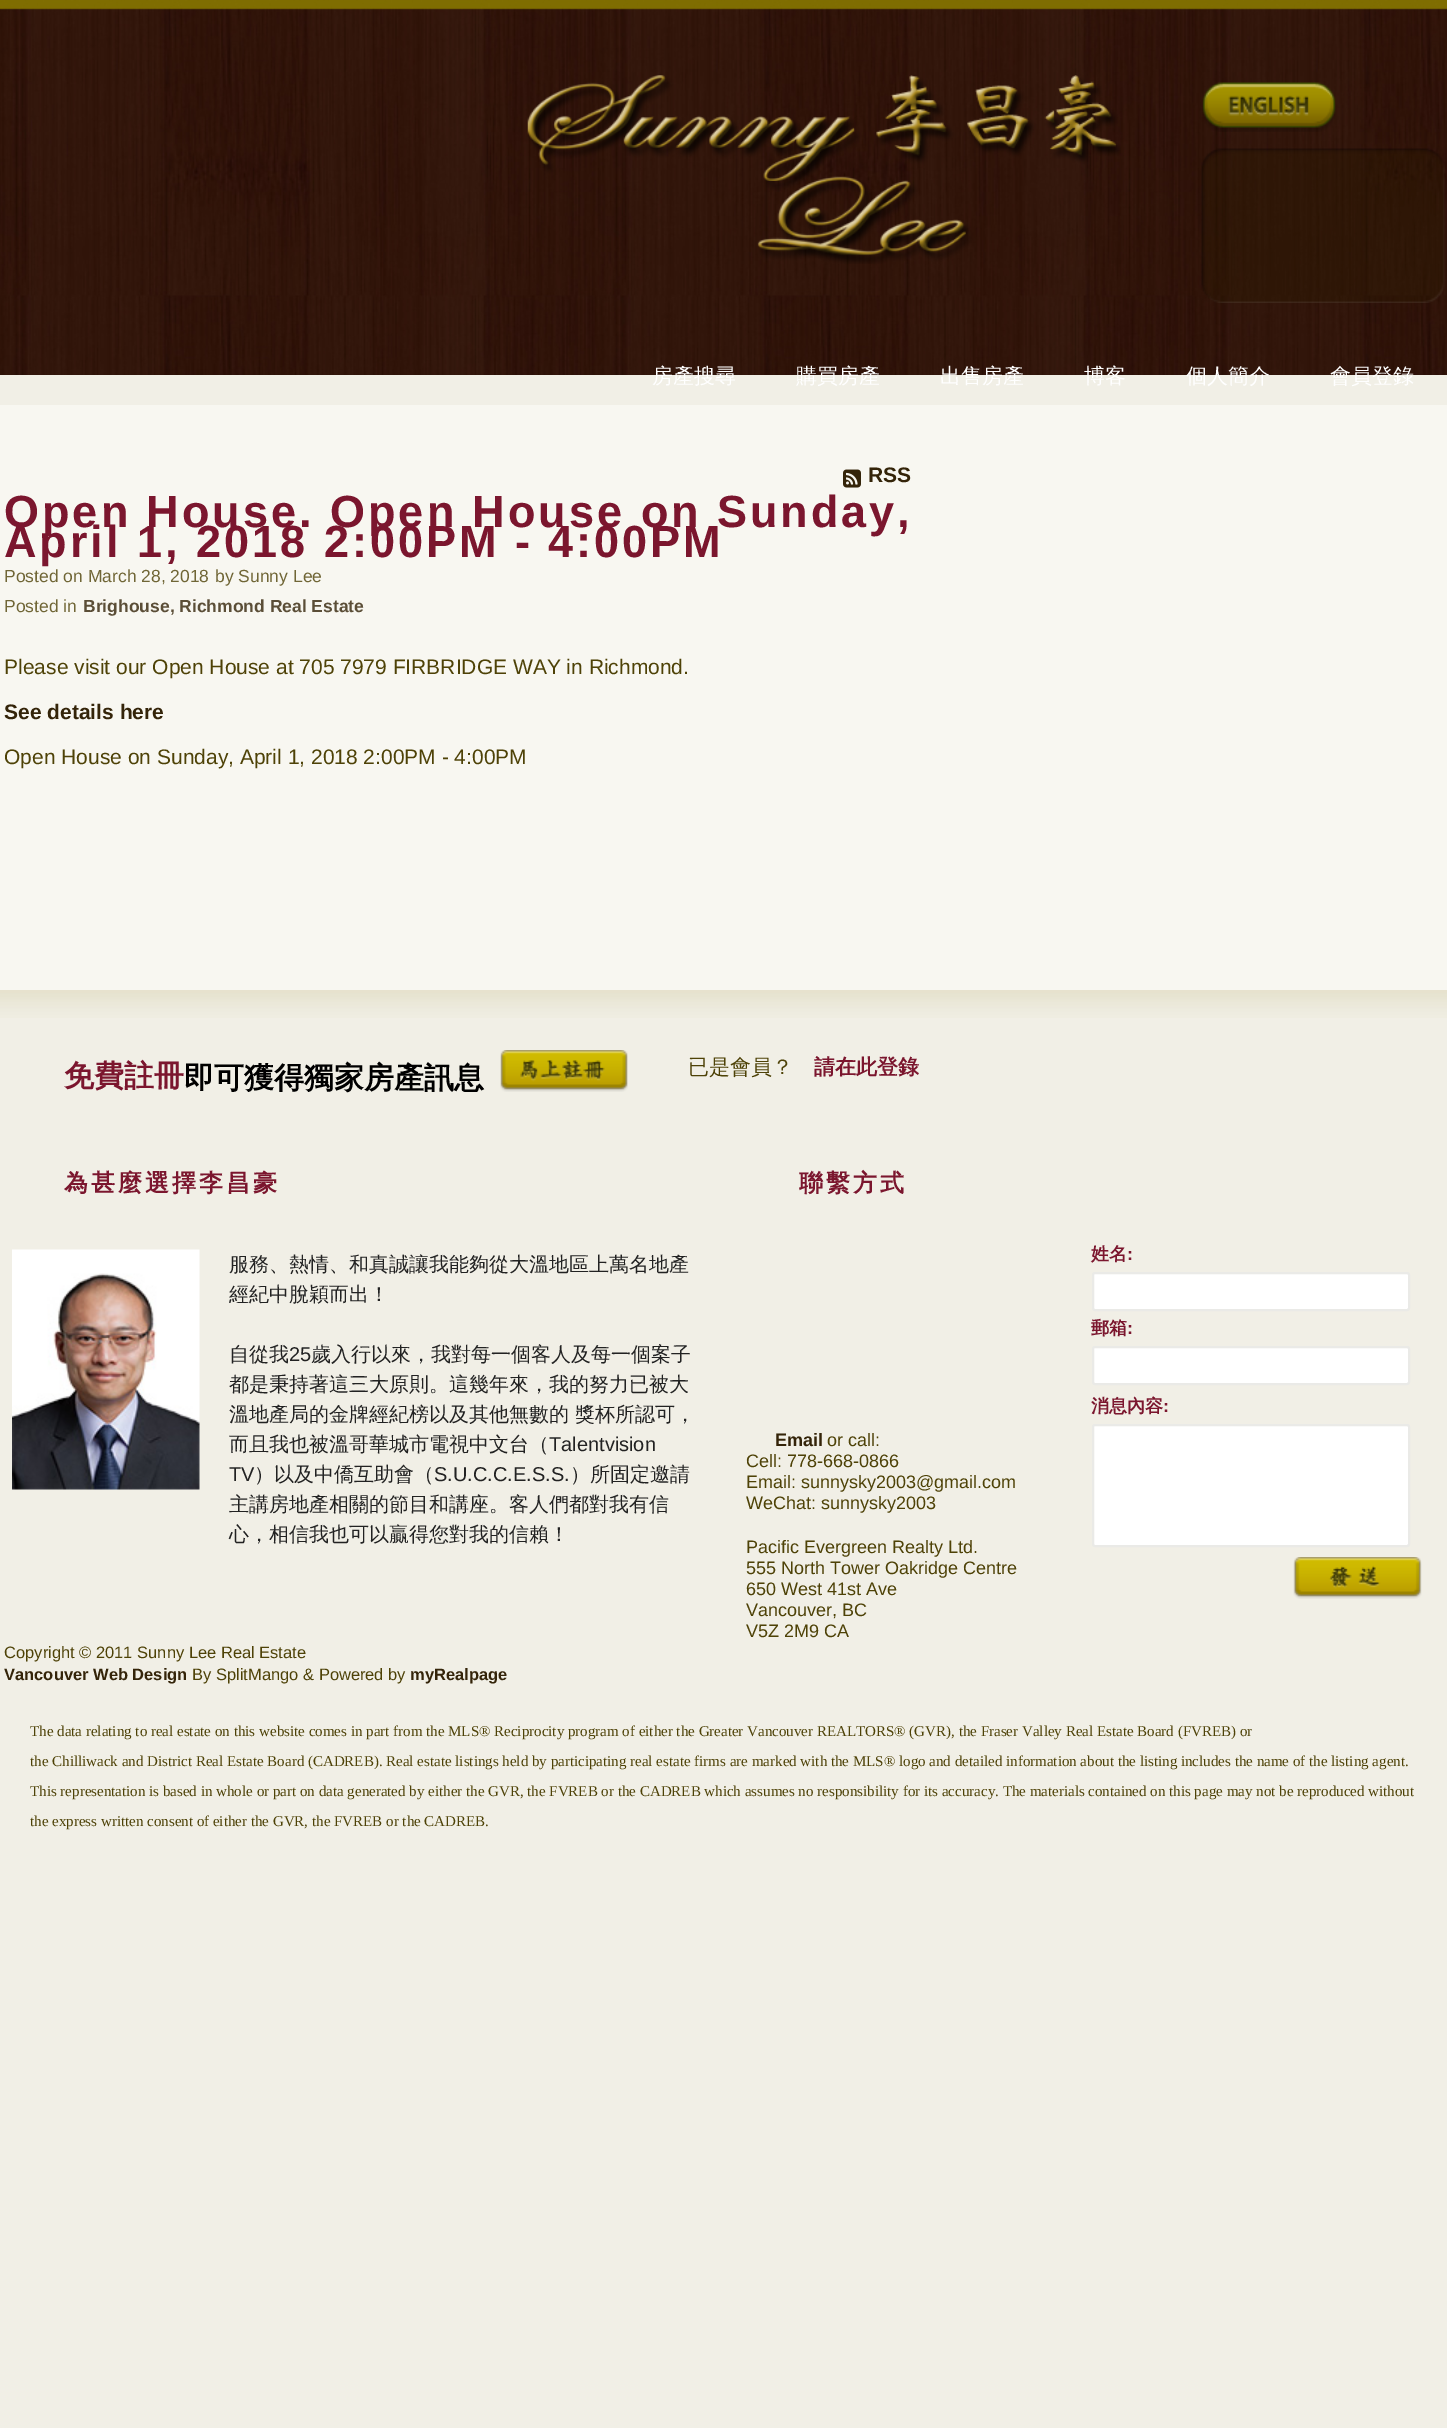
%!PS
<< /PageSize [1447 2428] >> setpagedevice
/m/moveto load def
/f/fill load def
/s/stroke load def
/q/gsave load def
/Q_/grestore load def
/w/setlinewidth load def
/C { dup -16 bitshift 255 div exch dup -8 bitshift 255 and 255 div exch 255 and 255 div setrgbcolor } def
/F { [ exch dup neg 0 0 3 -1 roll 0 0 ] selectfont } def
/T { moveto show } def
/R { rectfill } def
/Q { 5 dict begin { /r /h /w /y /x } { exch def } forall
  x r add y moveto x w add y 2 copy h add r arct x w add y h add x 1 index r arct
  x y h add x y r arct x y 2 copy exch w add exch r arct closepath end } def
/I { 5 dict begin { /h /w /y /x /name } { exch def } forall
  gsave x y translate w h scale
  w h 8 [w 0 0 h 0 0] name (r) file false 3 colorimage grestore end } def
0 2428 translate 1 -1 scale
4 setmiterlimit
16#F1EFE6 C
0 0 1447 2428 R
(1.rgb) 0 0 1447 375 I
(2.rgb) 527 75 594 189 I
(3.rgb) 1202 82 134 50 I
(4.rgb) 1201 148 244 155 I
/WenQuanYiZenHei-Medium 21 F
16#FFFFFF C
(房產搜尋) 652 383 T
(購買房產) 796 383 T
(出售房產) 940 383 T
(博客) 1084 383 T
(個人簡介) 1186 383 T
(會員登錄) 1330 383 T
16#F8F7F1 C
0 405 1447 585 R
(5.rgb) 843 469 18 19 I
/LiberationSans-Bold 21 F
16#342409 C
(RSS) 868 482 T
/LiberationSans-Bold 45 F
16#7B162E C
4 527 m 3 0 (Open House. Open House on Sunday,) ashow
4 557 m 3 0 (April 1, 2018 2:00PM - 4:00PM) ashow
/LiberationSans-Regular 17.5 F
16#706636 C
(Posted on March 28, 2018) 4 582 T
(by Sunny Lee) 215 582 T
(Posted in) 4 612 T
/LiberationSans-Bold 17.5 F
16#5B4E37 C
(Brighouse, Richmond Real Estate) 83 612 T
/LiberationSans-Regular 21 F
16#4E4207 C
(Please visit our Open House at 705 7979 FIRBRIDGE WAY in Richmond.) 4 674 T
/LiberationSans-Bold 21 F
16#342409 C
(See details here) 4 719 T
q
5 636 915 150 rectclip
/LiberationSans-Regular 21 F
16#4E4207 C
(Open House on Sunday, April 1, 2018 2:00PM - 4:00PM) 4 764 T
Q_
(6.rgb) 0 990 1447 28 I
/WenQuanYiZenHei-Bold 30 F
16#7B162E C
(免費註冊) 64 1086 T
16#000000 C
(即可獲得獨家房產訊息) 184 1088 T
(7.rgb) 500 1050 128 42 I
/WenQuanYiZenHei-Medium 21 F
16#4E4207 C
(已是會員？) 688 1074 T
/WenQuanYiZenHei-Bold 21 F
16#7B162E C
(請在此登錄) 814 1074 T
/WenQuanYiZenHei-Bold 24 F
64 1191 m 3 0 (為甚麼選擇李昌豪) ashow
(8.rgb) 12 1249 188 241 I
/WenQuanYiZenHei-Medium 20 F
16#222222 C
(服務、熱情、和真誠讓我能夠從大溫地區上萬名地產) 229 1271 T
(經紀中脫穎而出！) 229 1301 T
(自從我) 229 1361 T
/LiberationSans-Regular 20 F
(25) 289 1361 T
/WenQuanYiZenHei-Medium 20 F
(歲入行以來，我對每一個客人及每一個案子) 311 1361 T
(都是秉持著這三大原則。這幾年來，我的努力已被大) 229 1391 T
(溫地產局的金牌經紀榜以及其他無數的 獎杯所認可，) 229 1421 T
(而且我也被溫哥華城市電視中文台（) 229 1451 T
/LiberationSans-Regular 20 F
(Talentvision) 549 1451 T
(TV) 229 1481 T
/WenQuanYiZenHei-Medium 20 F
(）以及中僑互助會（) 254 1481 T
/LiberationSans-Regular 20 F
(S.U.C.C.E.S.S.) 434 1481 T
/WenQuanYiZenHei-Medium 20 F
(）所固定邀請) 570 1481 T
(主講房地產相關的節目和講座。客人們都對我有信) 229 1511 T
(心，相信我也可以贏得您對我的信賴！) 229 1541 T
/WenQuanYiZenHei-Bold 24 F
16#7B162E C
799 1191 m 3 0 (聯繫方式) ashow
/WenQuanYiZenHei-Bold 18 F
(姓名) 1091 1260 T
/LiberationSans-Bold 18 F
(:) 1127 1260 T
16#FFFFFF C
1093 1273 316 37 2 Q q f Q_
16#EAEAE7 C
2 w
s
/WenQuanYiZenHei-Bold 18 F
16#7B162E C
(郵箱) 1091 1334 T
/LiberationSans-Bold 18 F
(:) 1127 1334 T
16#FFFFFF C
1093 1347 316 37 2 Q q f Q_
16#EAEAE7 C
s
/WenQuanYiZenHei-Bold 18 F
16#7B162E C
(消息內容) 1091 1412 T
/LiberationSans-Bold 18 F
(:) 1163 1412 T
16#FFFFFF C
1093 1425 316 121 2 Q q f Q_
16#EAEAE7 C
s
(9.rgb) 1293 1557 129 42 I
16#342409 C
(Email) 775 1446 T
/LiberationSans-Regular 18 F
16#4E4207 C
(or call:) 827 1446 T
(Cell: 778-668-0866) 746 1467 T
(Email: sunnysky2003@gmail.com) 746 1488 T
(WeChat: sunnysky2003) 746 1509 T
(Pacific Evergreen Realty Ltd.) 746 1553 T
(555 North Tower Oakridge Centre) 746 1574 T
(650 West 41st Ave) 746 1595 T
(Vancouver, BC) 746 1616 T
(V5Z 2M9 CA) 746 1637 T
/LiberationSans-Regular 16.5 F
(Copyright © 2011 Sunny Lee Real Estate) 4 1658 T
/LiberationSans-Bold 16.5 F
16#342409 C
(Vancouver Web Design) 4 1680 T
/LiberationSans-Regular 16.5 F
16#4E4207 C
(By SplitMango & Powered by) 192 1680 T
/LiberationSans-Bold 16.5 F
16#342409 C
(myRealpage) 410 1680 T
/LiberationSerif-Regular 15 F
16#4E4207 C
(The data relating to real estate on this website comes in part from the MLS® Reciprocity program of either the Greater Vancouver REALTORS® \(GVR\), the Fraser Valley Real Estate Board \(FVREB\) or) 30 1736 T
(the Chilliwack and District Real Estate Board \(CADREB\). Real estate listings held by participating real estate firms are marked with the MLS® logo and detailed information about the listing includes the name of the listing agent.) 30 1766 T
(This representation is based in whole or part on data generated by either the GVR, the FVREB or the CADREB which assumes no responsibility for its accuracy. The materials contained on this page may not be reproduced without) 30 1796 T
(the express written consent of either the GVR, the FVREB or the CADREB.) 30 1826 T
showpage
